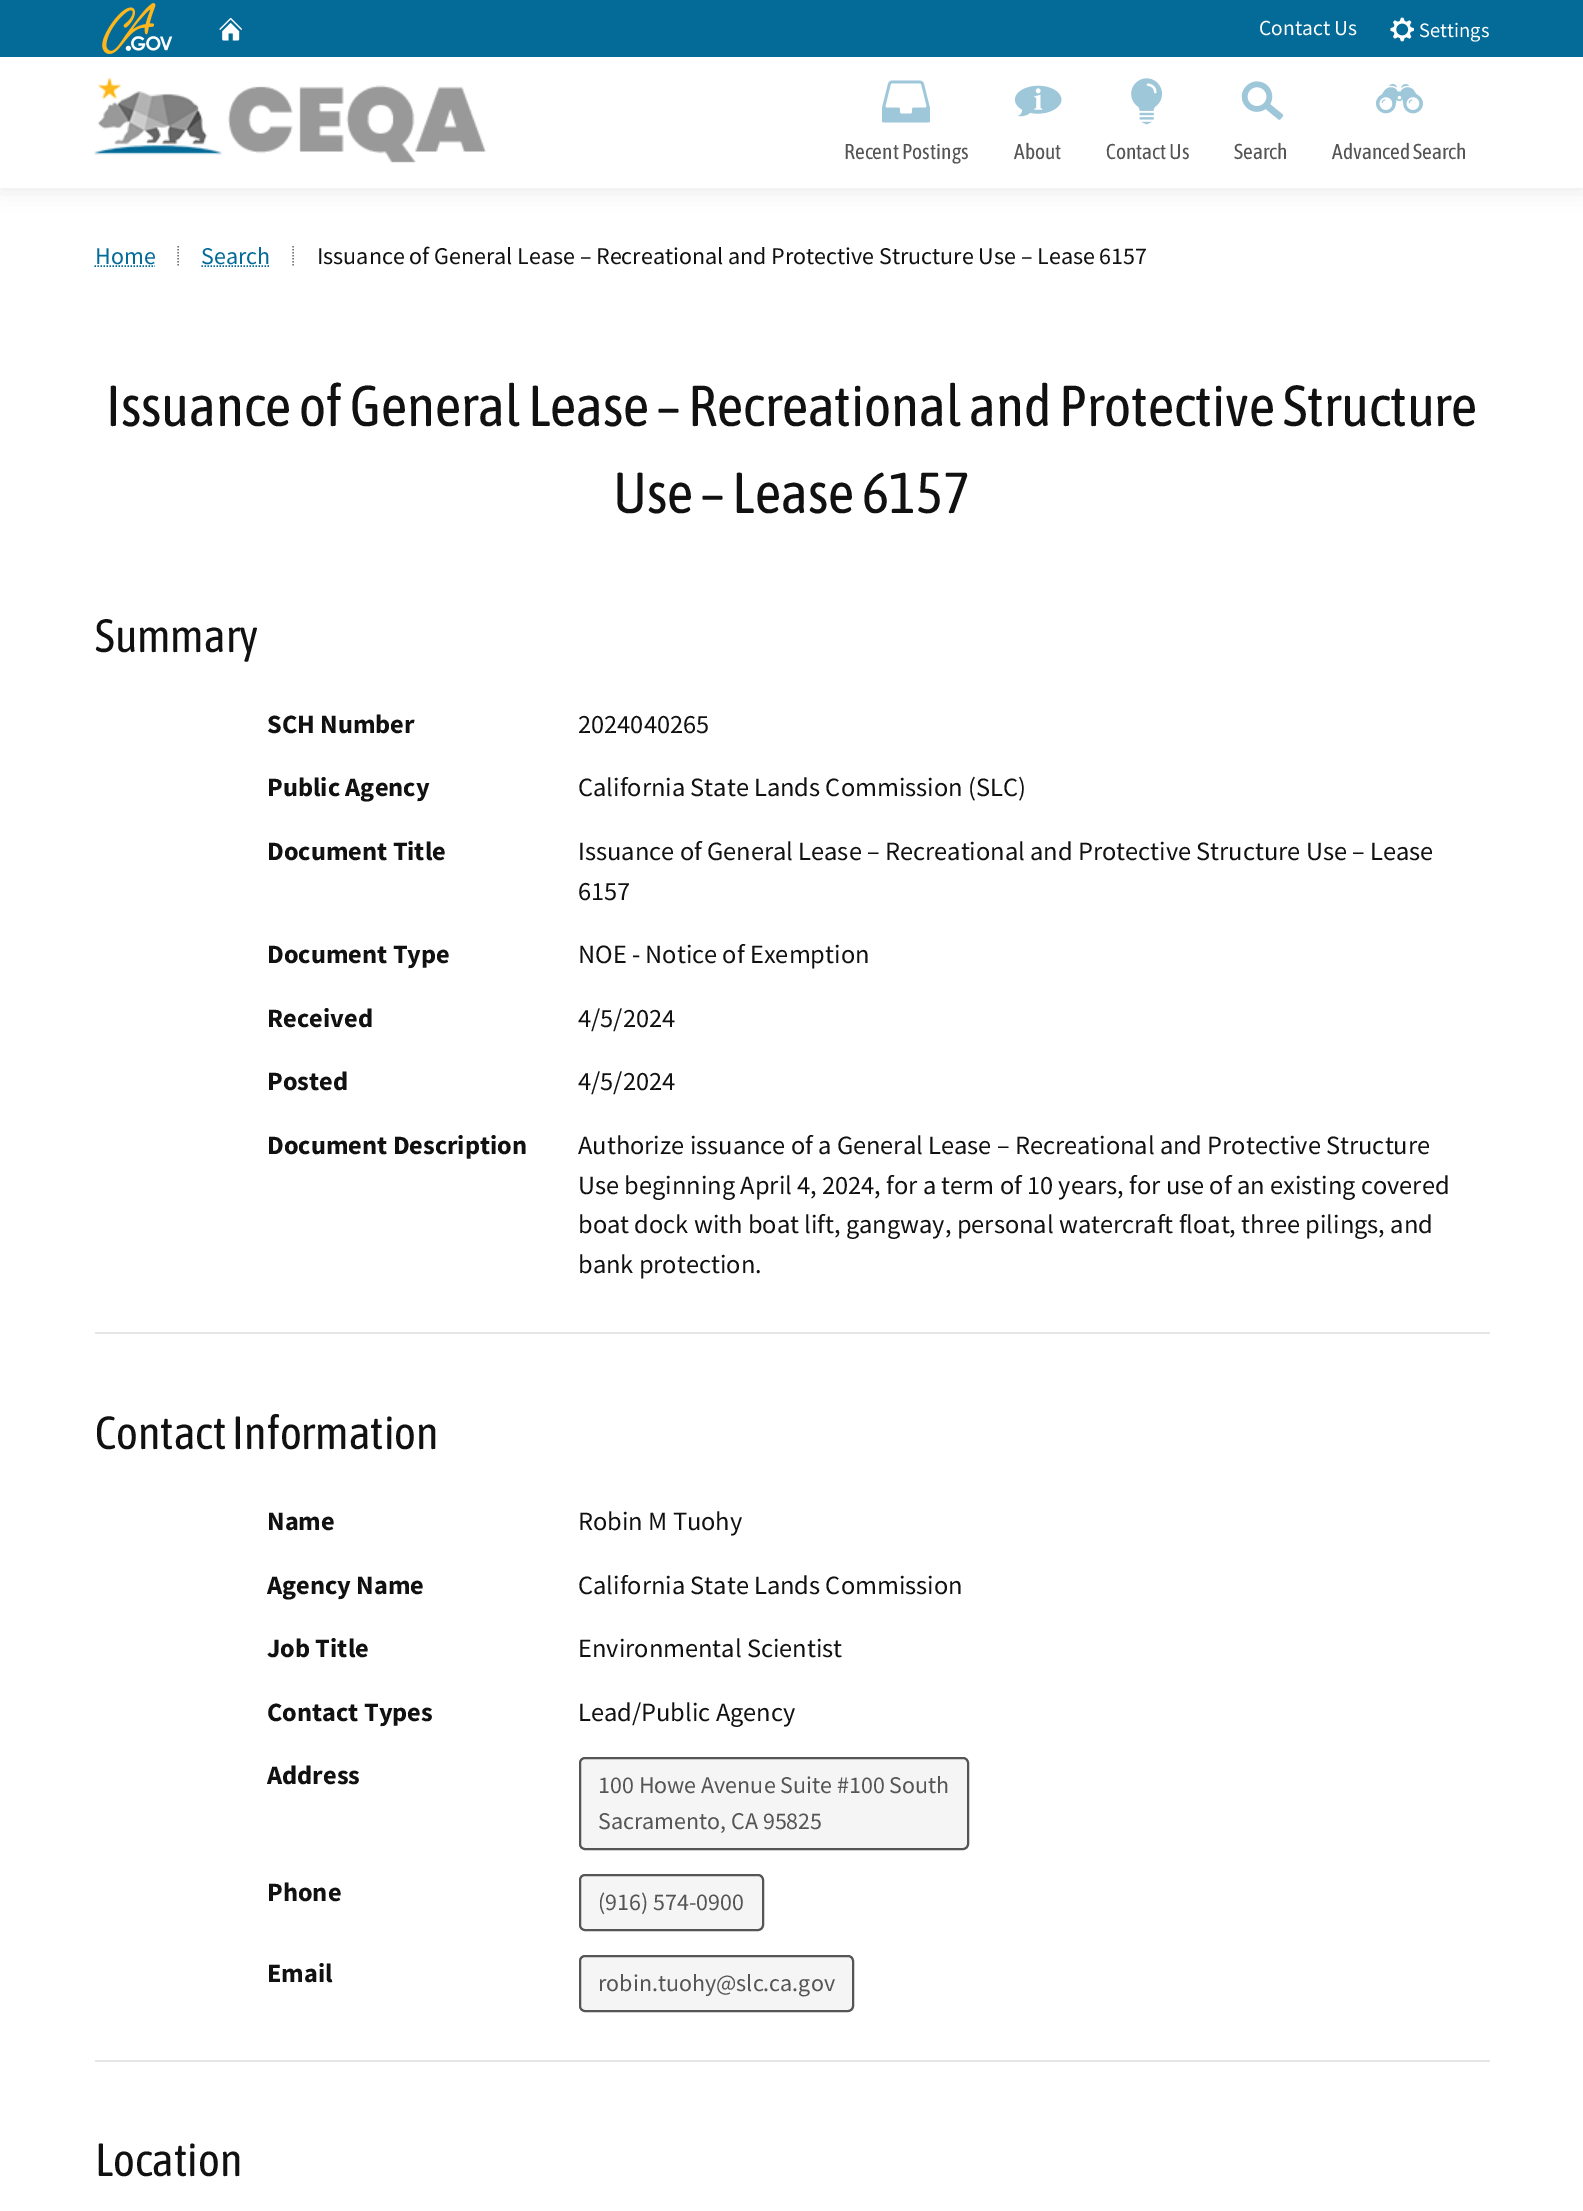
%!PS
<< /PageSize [1583 2211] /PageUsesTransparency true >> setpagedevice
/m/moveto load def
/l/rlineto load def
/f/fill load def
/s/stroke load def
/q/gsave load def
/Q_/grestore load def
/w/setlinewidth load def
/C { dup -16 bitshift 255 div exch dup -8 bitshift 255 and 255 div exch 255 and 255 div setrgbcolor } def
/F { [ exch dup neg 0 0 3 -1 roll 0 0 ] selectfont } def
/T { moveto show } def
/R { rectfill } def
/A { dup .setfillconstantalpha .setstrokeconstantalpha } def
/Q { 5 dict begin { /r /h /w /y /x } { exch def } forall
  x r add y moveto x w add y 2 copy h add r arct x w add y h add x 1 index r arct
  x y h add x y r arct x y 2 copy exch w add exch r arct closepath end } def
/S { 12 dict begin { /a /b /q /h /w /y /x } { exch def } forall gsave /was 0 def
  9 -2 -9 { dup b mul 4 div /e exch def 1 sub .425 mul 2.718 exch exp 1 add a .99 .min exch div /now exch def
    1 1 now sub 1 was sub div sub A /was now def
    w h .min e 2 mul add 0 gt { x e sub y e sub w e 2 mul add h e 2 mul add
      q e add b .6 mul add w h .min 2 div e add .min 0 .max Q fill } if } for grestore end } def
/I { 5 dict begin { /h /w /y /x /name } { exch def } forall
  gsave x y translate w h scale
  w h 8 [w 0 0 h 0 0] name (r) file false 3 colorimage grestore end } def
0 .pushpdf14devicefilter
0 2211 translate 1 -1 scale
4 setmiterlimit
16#FFFFFF C
0 0 1583 2211 R
16#BDBDBD C
0 0 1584 188 0 11 .4 S
16#FFFFFF C
0 57 1583 131 R
16#046B99 C
0 0 1583 57 R
(1.rgb) 102 3 71 51 I
(2.rgb) 219 17 23 24 I
/SourceSansPro-Regular 21.5 F
16#FFFFFF C
(Contact Us) 1259 35 T
(3.rgb) 1390 17 24 25 I
/SourceSansPro-Regular 20.5 F
(Settings) 1419 37 T
(4.rgb) 94 77 393 86 I
(5.rgb) 882 80 48 43 I
/AsapCondensed-Regular 21.5 F
16#555555 C
(Recent Postings) 844 159 T
(6.rgb) 1014 85 48 32 I
(About) 1014 159 T
(7.rgb) 1131 78 32 47 I
(Contact Us) 1106 159 T
(8.rgb) 1241 81 43 39 I
(Search) 1234 159 T
(9.rgb) 1376 83 47 31 I
(Advanced Search) 1332 159 T
/SourceSansPro-Regular 24 F
16#046B99 C
(Home) 95 264 T
1.5 w
[1.5 1.5] 0 setdash
94.5 266 m 60.5 0 l s
16#777777 C
178 246 m 0 19.5 l s
16#046B99 C
(Search) 201 264 T
201.5 266 m 69 0 l s
16#777777 C
293 246 m 0 19.5 l s
16#111111 C
(Issuance of General Lease – Recreational and Protective Structure Use – Lease 6157) 317 264 T
/AsapCondensed-Regular 57.6 F
(Issuance of General Lease – Recreational and Protective Structure) 106 426 T
(Use – Lease 6157) 613 513 T
/AsapCondensed-Regular 46.5 F
(Summary) 95 652 T
/SourceSansPro-Bold 26.4 F
(SCH Number) 267 733 T
/SourceSansPro-Regular 26.4 F
(2024040265) 578 733 T
/SourceSansPro-Bold 26.4 F
(Public Agency) 267 796 T
/SourceSansPro-Regular 26.4 F
(California State Lands Commission \(SLC\)) 578 796 T
/SourceSansPro-Bold 26.4 F
(Document Title) 267 860 T
/SourceSansPro-Regular 26.4 F
(Issuance of General Lease – Recreational and Protective Structure Use – Lease) 578 860 T
(6157) 578 900 T
/SourceSansPro-Bold 26.4 F
(Document Type) 267 963 T
/SourceSansPro-Regular 26.4 F
(NOE - Notice of Exemption) 578 963 T
/SourceSansPro-Bold 26.4 F
(Received) 267 1027 T
/SourceSansPro-Regular 26.4 F
(4/5/2024) 578 1027 T
/SourceSansPro-Bold 26.4 F
(Posted) 267 1090 T
/SourceSansPro-Regular 26.4 F
(4/5/2024) 578 1090 T
/SourceSansPro-Bold 26.4 F
(Document Description) 267 1154 T
/SourceSansPro-Regular 26.4 F
(Authorize issuance of a General Lease – Recreational and Protective Structure) 578 1154 T
(Use beginning April 4, 2024, for a term of 10 years, for use of an existing covered) 578 1194 T
(boat dock with boat lift, gangway, personal watercraft float, three pilings, and) 578 1233 T
(bank protection.) 578 1273 T
16#E6E6E6 C
95 1332 1395 2 R
/AsapCondensed-Regular 46.5 F
16#111111 C
(Contact Information) 95 1449 T
/SourceSansPro-Bold 26.4 F
(Name) 267 1530 T
/SourceSansPro-Regular 26.4 F
(Robin M Tuohy) 578 1530 T
/SourceSansPro-Bold 26.4 F
(Agency Name) 267 1594 T
/SourceSansPro-Regular 26.4 F
(California State Lands Commission) 578 1594 T
/SourceSansPro-Bold 26.4 F
(Job Title) 267 1657 T
/SourceSansPro-Regular 26.4 F
(Environmental Scientist) 578 1657 T
/SourceSansPro-Bold 26.4 F
(Contact Types) 267 1721 T
/SourceSansPro-Regular 26.4 F
(Lead/Public Agency) 578 1721 T
/SourceSansPro-Bold 26.4 F
(Address) 267 1784 T
16#F5F5F5 C
580 1758 388 91 5 Q q f Q_
16#555555 C
2 w
[] 0 setdash
s
/SourceSansPro-Regular 24 F
(100 Howe Avenue Suite #100 South) 598 1793 T
(Sacramento, CA 95825) 598 1829 T
/SourceSansPro-Bold 26.4 F
16#111111 C
(Phone) 267 1901 T
16#F5F5F5 C
580 1875 183 55 5 Q q f Q_
16#555555 C
s
/SourceSansPro-Regular 24 F
(\(916\) 574-0900) 598 1910 T
/SourceSansPro-Bold 26.4 F
16#111111 C
(Email) 267 1982 T
16#F5F5F5 C
580 1956 273 55 5 Q q f Q_
16#555555 C
s
/SourceSansPro-Regular 24 F
(robin.tuohy@slc.ca.gov) 598 1991 T
16#E6E6E6 C
95 2060 1395 2 R
/AsapCondensed-Regular 46.5 F
16#111111 C
(Location) 95 2176 T
.poppdf14devicefilter showpage
